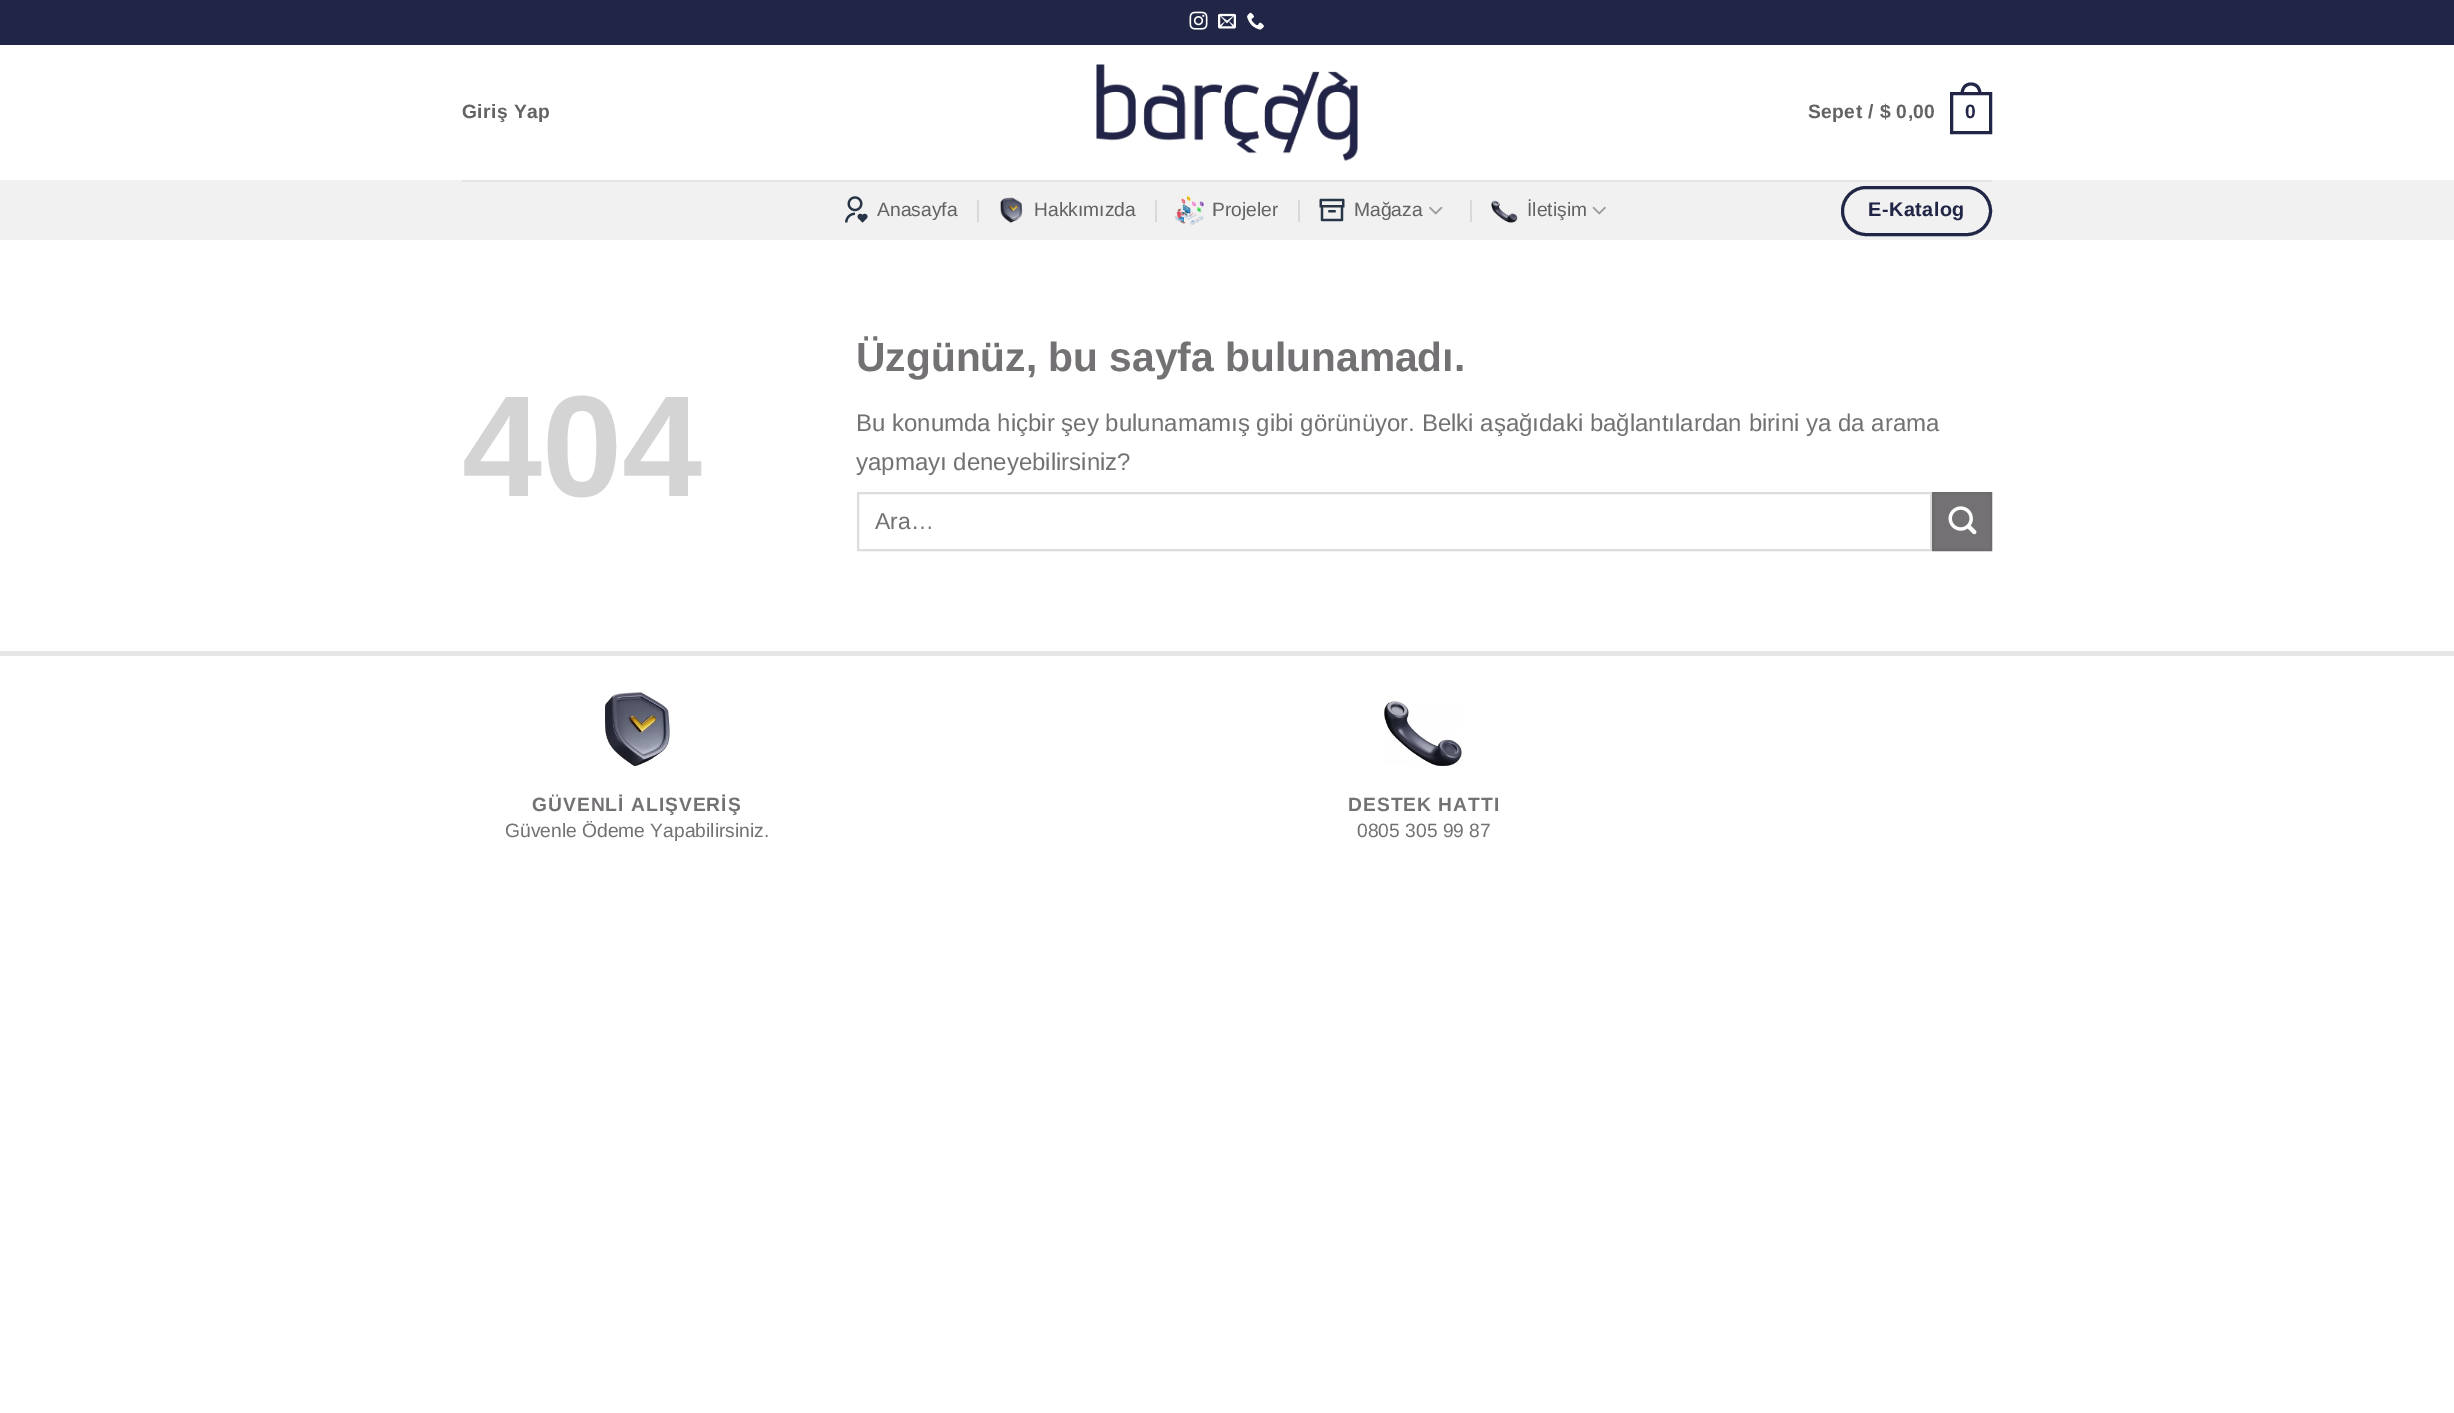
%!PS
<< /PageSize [2454 1413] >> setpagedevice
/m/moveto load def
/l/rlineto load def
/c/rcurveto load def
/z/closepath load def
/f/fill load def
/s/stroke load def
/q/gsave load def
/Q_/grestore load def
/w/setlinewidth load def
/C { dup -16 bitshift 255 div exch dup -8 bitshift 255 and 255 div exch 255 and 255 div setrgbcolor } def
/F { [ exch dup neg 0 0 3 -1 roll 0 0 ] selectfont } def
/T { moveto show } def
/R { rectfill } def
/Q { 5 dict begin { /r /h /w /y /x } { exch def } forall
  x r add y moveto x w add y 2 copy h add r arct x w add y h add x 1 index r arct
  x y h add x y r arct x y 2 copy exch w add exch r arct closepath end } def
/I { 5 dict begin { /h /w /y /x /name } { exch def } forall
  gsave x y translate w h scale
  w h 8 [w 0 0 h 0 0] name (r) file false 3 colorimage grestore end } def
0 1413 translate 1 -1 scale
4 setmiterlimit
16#FFFFFF C
0 0 2454 1413 R
16#212546 C
0 0 2454 45 R
(1.rgb) 1189 11 19 19 I
(2.rgb) 1218 13 18 16 I
(3.rgb) 1247 12 17 18 I
/LiberationSans-Bold 19.25 F
16#636363 C
462 118 m .4 0 (Giriş Yap) ashow
(4.rgb) 1096 64 262 97 I
1808 118 m .4 0 (Sepet / $ 0,00) ashow
16#212546 C
3 w
1951.5 93.5 39 39 rectstroke
1971 82.5 m 7 0 10.5 5.5 10.5 12 c -21 0 l 0 -6.5 3.5 -12 10.5 -12 c z 1971 85.5 m 5.5 0 7.5 4.5 7.5 9 c -15 0 l 0 -4.5 2 -9 7.5 -9 c z eofill
1965 118 m .4 0 (0) ashow
16#F1F1F1 C
0 180 2454 60 R
16#E4E4E4 C
462 180 1530 2 R
(5.rgb) 845 196 23 27 I
/LiberationSans-Regular 19.25 F
16#636363 C
(Anasayfa) 877 216 T
16#D9D9D9 C
977 200 2 22 R
(6.rgb) 1000 197 23 26 I
16#636363 C
(Hakkımızda) 1034 216 T
16#D9D9D9 C
1155 200 2 22 R
(7.rgb) 1174 195 30 30 I
16#636363 C
(Projeler) 1212 216 T
16#D9D9D9 C
1298 200 2 22 R
(8.rgb) 1319 198 26 24 I
16#636363 C
(Mağaza) 1354 216 T
(9.rgb) 1429 206 14 9 I
16#D9D9D9 C
1470 200 2 22 R
(10.rgb) 1491 200 27 23 I
16#636363 C
(İletişim) 1527 216 T
(11.rgb) 1592 206 14 9 I
16#212546 C
1842.5 187.5 148 47 23.5 Q s
/LiberationSans-Bold 19.75 F
1868 216 m .5 0 (E-Katalog) ashow
/LiberationSans-Bold 144 F
16#D5D4D5 C
(404) 462 496 T
/LiberationSans-Bold 40.75 F
16#737173 C
(Üzgünüz, bu sayfa bulunamadı.) 856 371 T
/LiberationSans-Regular 24 F
(Bu konumda hiçbir şey bulunamamış gibi görünüyor. Belki aşağıdaki bağlantılardan birini ya da arama) 856 431 T
(yapmayı deneyebilirsiniz?) 856 470 T
16#DDDDDD C
2 w
858 493 1073 57 rectstroke
/LiberationSans-Regular 23 F
16#737173 C
(Ara…) 875 529 T
1933 493 m 58 0 l 0 57 l -58 0 l z q f Q_
16#6D6B6D C
s
(12.rgb) 1948 506 29 29 I
16#E6E6E6 C
0 651 2454 5 R
(13.rgb) 605 692 65 74 I
/LiberationSans-Bold 19.25 F
16#737173 C
532 811 m 1 0 (GÜVENLİ ALIŞVERİŞ) ashow
/LiberationSans-Regular 19.25 F
(Güvenle Ödeme Yapabilirsiniz.) 505 837 T
(14.rgb) 1384 701 78 65 I
/LiberationSans-Bold 19.25 F
1348 811 m 1 0 (DESTEK HATTI) ashow
/LiberationSans-Regular 19.25 F
(0805 305 99 87) 1357 837 T
showpage
